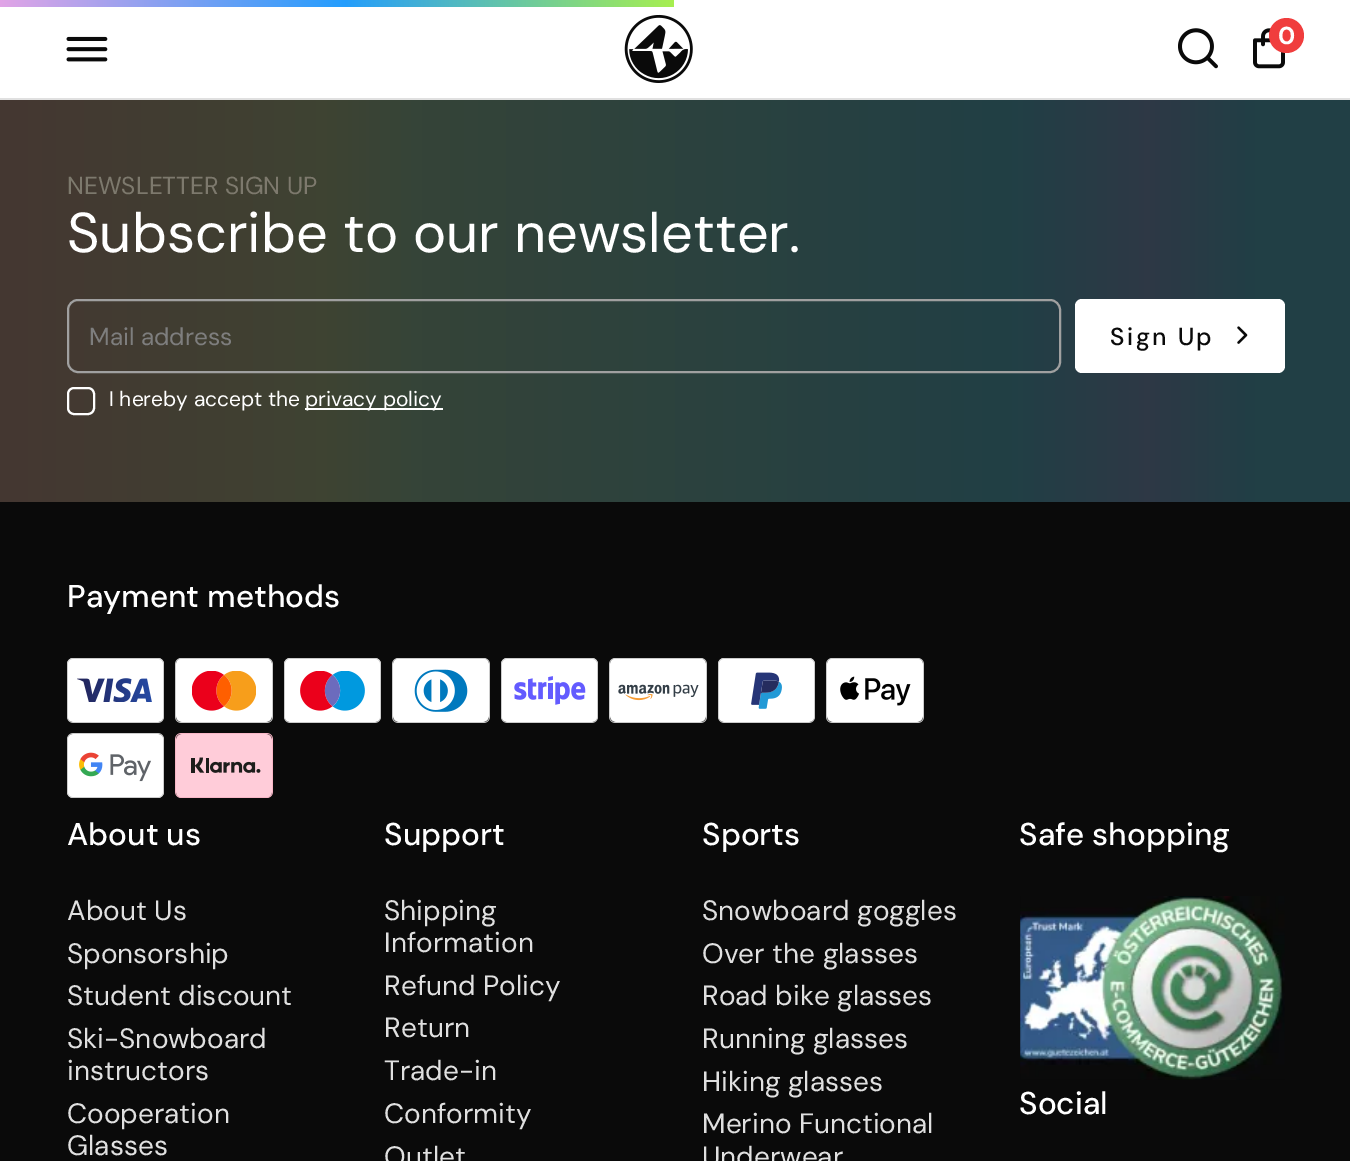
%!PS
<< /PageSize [1350 1161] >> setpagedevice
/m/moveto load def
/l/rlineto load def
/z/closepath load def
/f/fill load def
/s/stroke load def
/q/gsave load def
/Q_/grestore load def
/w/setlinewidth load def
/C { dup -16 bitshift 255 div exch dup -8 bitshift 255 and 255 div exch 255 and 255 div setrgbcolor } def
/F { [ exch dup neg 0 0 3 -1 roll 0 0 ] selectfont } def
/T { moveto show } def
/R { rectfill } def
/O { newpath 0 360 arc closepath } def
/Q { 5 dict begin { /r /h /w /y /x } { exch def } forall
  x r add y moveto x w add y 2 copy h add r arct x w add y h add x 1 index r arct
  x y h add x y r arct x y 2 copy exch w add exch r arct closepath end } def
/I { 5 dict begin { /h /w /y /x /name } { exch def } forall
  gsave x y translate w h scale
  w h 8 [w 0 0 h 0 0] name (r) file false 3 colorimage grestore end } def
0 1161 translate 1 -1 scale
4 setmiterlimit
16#FFFFFF C
0 0 1350 1161 R
q 0 0 m 674 0 l 0 7 l -674 0 l z clip newpath
<< /ShadingType 2 /ColorSpace /DeviceRGB /Coords [0 3.5 674 3.5] /Extend [true true] /Function << /FunctionType 3 /Domain [0 1] /Functions [<< /FunctionType 2 /Domain [0 1] /C0 [.882 .643 .902] /C1 [.141 .616 .992] /N 1 >> << /FunctionType 2 /Domain [0 1] /C0 [.141 .616 .992] /C1 [.655 .937 .314] /N 1 >>] /Bounds [.51] /Encode [0 1 0 1] >> >> shfill Q_
16#E0E0E0 C
0 98 1350 2 R
(1.rgb) 66 36 42 26 I
(2.rgb) 624 14 69 69 I
(3.rgb) 1178 28 40 41 I
(4.rgb) 1253 28 32 41 I
16#F03D3D C
1286.5 35.5 17.5 O f
/DMSans-Bold 24.5 F
16#FFFFFF C
(0) 1278 44 T
q 0 100 m 1350 0 l 0 402 l -1350 0 l z clip newpath
<< /ShadingType 2 /ColorSpace /DeviceRGB /Coords [0 292 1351 292] /Extend [true true] /Function << /FunctionType 3 /Domain [0 1] /Functions [<< /FunctionType 2 /Domain [0 1] /C0 [.271 .216 .192] /C1 [.243 .263 .196] /N 1 >> << /FunctionType 2 /Domain [0 1] /C0 [.243 .263 .196] /C1 [.208 .267 .22] /N 1 >> << /FunctionType 2 /Domain [0 1] /C0 [.208 .267 .22] /C1 [.129 .247 .271] /N 1 >> << /FunctionType 2 /Domain [0 1] /C0 [.129 .247 .271] /C1 [.18 .22 .271] /N 1 >> << /FunctionType 2 /Domain [0 1] /C0 [.18 .22 .271] /C1 [.129 .247 .271] /N 1 >> << /FunctionType 2 /Domain [0 1] /C0 [.129 .247 .271] /C1 [.129 .247 .271] /N 1 >>] /Bounds [.24 .31 .75 .85 .93] /Encode [0 1 0 1 0 1 0 1 0 1 0 1] >> >> shfill Q_
/DMSans-Regular 24.5 F
16#7D796D C
(NEWSLETTER SIGN UP) 67 194 T
/DMSans-Regular 56 F
16#FFFFFF C
(Subscribe to our newsletter.) 67 252 T
16#A0A0A0 C
2 w
68 300 992 72 10 Q s
/DMSans-Regular 24.5 F
16#7E7E7E C
(Mail address) 89 345 T
16#FFFFFF C
1075 299 210 74 7 Q f
/DMSans-Medium 24.5 F
16#0A0A0A C
1110 345 m 2.5 0 (Sign Up) ashow
(5.rgb) 1237 326 11 18 I
16#FFFFFF C
68 388 26 26 6 Q s
/DMSans-Regular 21 F
(I hereby accept the) 109 406 T
305 408 138 2 R
(privacy policy) 305 406 T
16#0A0A0A C
0 502 1350 659 R
/DMSans-Medium 31.5 F
16#FFFFFF C
(Payment methods) 67 607 T
(6.rgb) 67 658 97 65 I
(7.rgb) 175 658 98 65 I
(8.rgb) 284 658 97 65 I
(9.rgb) 392 658 98 65 I
(10.rgb) 501 658 97 65 I
(11.rgb) 609 658 98 65 I
(12.rgb) 718 658 97 65 I
(13.rgb) 826 658 98 65 I
(14.rgb) 67 733 97 65 I
(15.rgb) 175 733 98 65 I
(About us) 67 845 T
/DMSans-Regular 28 F
16#E0E0E0 C
(About Us) 67 920 T
(Sponsorship) 67 963 T
(Student discount) 67 1005 T
(Ski-Snowboard) 67 1048 T
(instructors) 67 1080 T
(Cooperation) 67 1123 T
(Glasses) 67 1155 T
/DMSans-Medium 31.5 F
16#FFFFFF C
(Support) 384 845 T
/DMSans-Regular 28 F
16#E0E0E0 C
(Shipping) 384 920 T
(Information) 384 952 T
(Refund Policy) 384 995 T
(Return) 384 1037 T
(Trade-in) 384 1080 T
(Conformity) 384 1123 T
(Outlet) 384 1166 T
/DMSans-Medium 31.5 F
16#FFFFFF C
(Sports) 702 845 T
/DMSans-Regular 28 F
16#E0E0E0 C
(Snowboard goggles) 702 920 T
(Over the glasses) 702 963 T
(Road bike glasses) 702 1005 T
(Running glasses) 702 1048 T
(Hiking glasses) 702 1091 T
(Merino Functional) 702 1133 T
(Underwear) 702 1166 T
/DMSans-Medium 31.5 F
16#FFFFFF C
(Safe shopping) 1019 845 T
(16.rgb) 1020 896 265 184 I
(Social) 1019 1114 T
showpage
